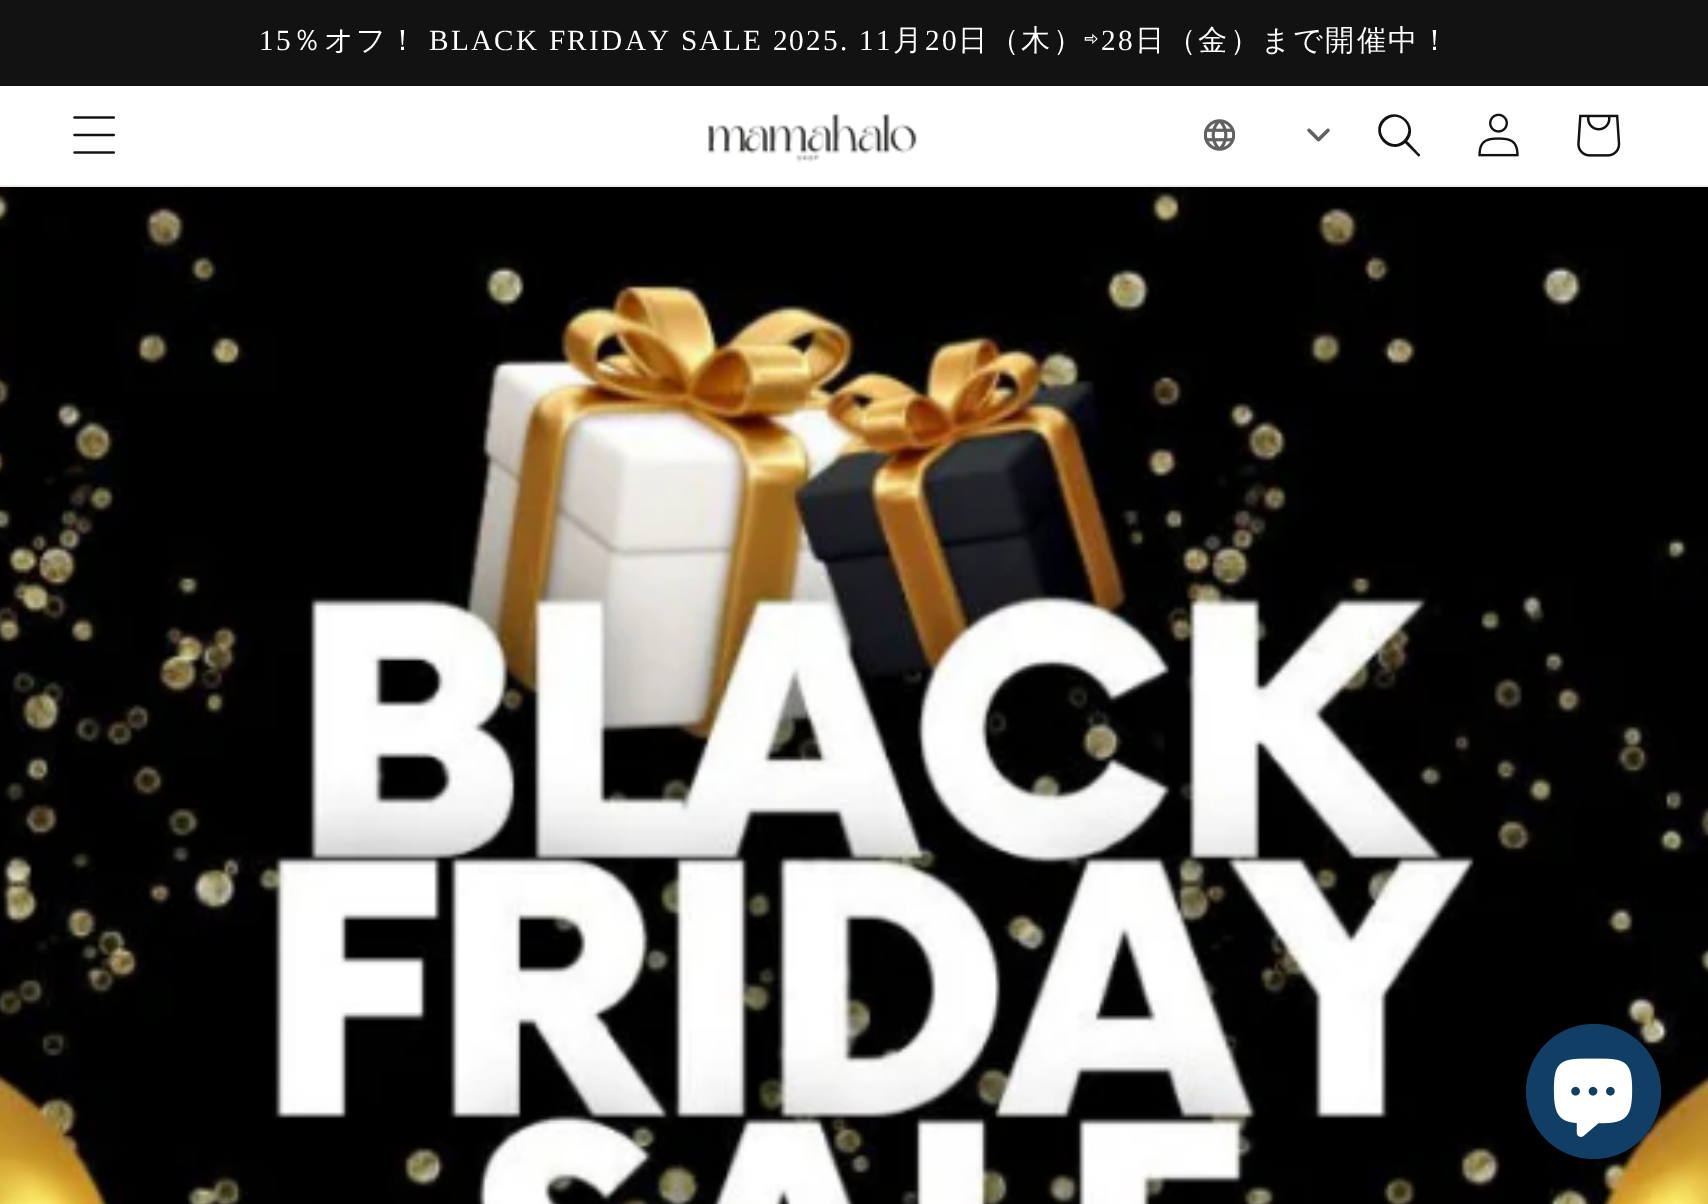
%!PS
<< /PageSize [1708 1204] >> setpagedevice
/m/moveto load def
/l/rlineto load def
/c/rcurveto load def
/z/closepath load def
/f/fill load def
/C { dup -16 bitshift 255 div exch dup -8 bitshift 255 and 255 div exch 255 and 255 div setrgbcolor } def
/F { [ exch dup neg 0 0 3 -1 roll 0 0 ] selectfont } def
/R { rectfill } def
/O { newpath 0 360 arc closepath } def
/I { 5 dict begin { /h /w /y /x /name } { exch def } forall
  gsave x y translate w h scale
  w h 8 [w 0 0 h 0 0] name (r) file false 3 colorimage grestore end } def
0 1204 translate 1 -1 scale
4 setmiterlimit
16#FFFFFF C
0 0 1708 1204 R
16#121212 C
0 0 1708 86 R
/LiberationSerif-Regular 29.25 F
16#FFFFFF C
259 50 m 2.25 0 (15) ashow
/WenQuanYiZenHei-Medium 29.25 F
292 50 m 2.25 0 (％オフ！) ashow
/LiberationSerif-Regular 29.25 F
429 50 m 2.25 0 (BLACK FRIDAY SALE 2025. 11) ashow
/WenQuanYiZenHei-Medium 29.25 F
893 50 m 2.25 0 (月) ashow
/LiberationSerif-Regular 29.25 F
925 50 m 2.25 0 (20) ashow
/WenQuanYiZenHei-Medium 29.25 F
958 50 m 2.25 0 (日（木）) ashow
/IPAPGothic-Regular 29.25 F
1084 50 m 2.25 0 (⇨) ashow
/LiberationSerif-Regular 29.25 F
1101 50 m 2.25 0 (28) ashow
/WenQuanYiZenHei-Medium 29.25 F
1135 50 m 2.25 0 (日（金）まで開催中！) ashow
16#ECECEC C
0 185 1708 2 R
(1.rgb) 73 116 42 38 I
(2.rgb) 707 112 210 51 I
(3.rgb) 1204 119 31 32 I
(4.rgb) 1307 128 23 14 I
16#121212 C
1404 140 m -12 13 -32 -7 -19 -19 c 13 -13 32 6 19 19 c 1405 143 m -16 13 -36 -10 -22 -24 c 15 -14 37 7 24 22 c 13 14 l 0 1 -2 2 -2 1 c z eofill
(5.rgb) 1478 113 41 44 I
(6.rgb) 1577 114 44 43 I
(7.rgb) 0 187 1708 1017 I
16#103E64 C
1593.5 1091.5 67.5 O f
(8.rgb) 1553 1058 80 79 I
showpage
